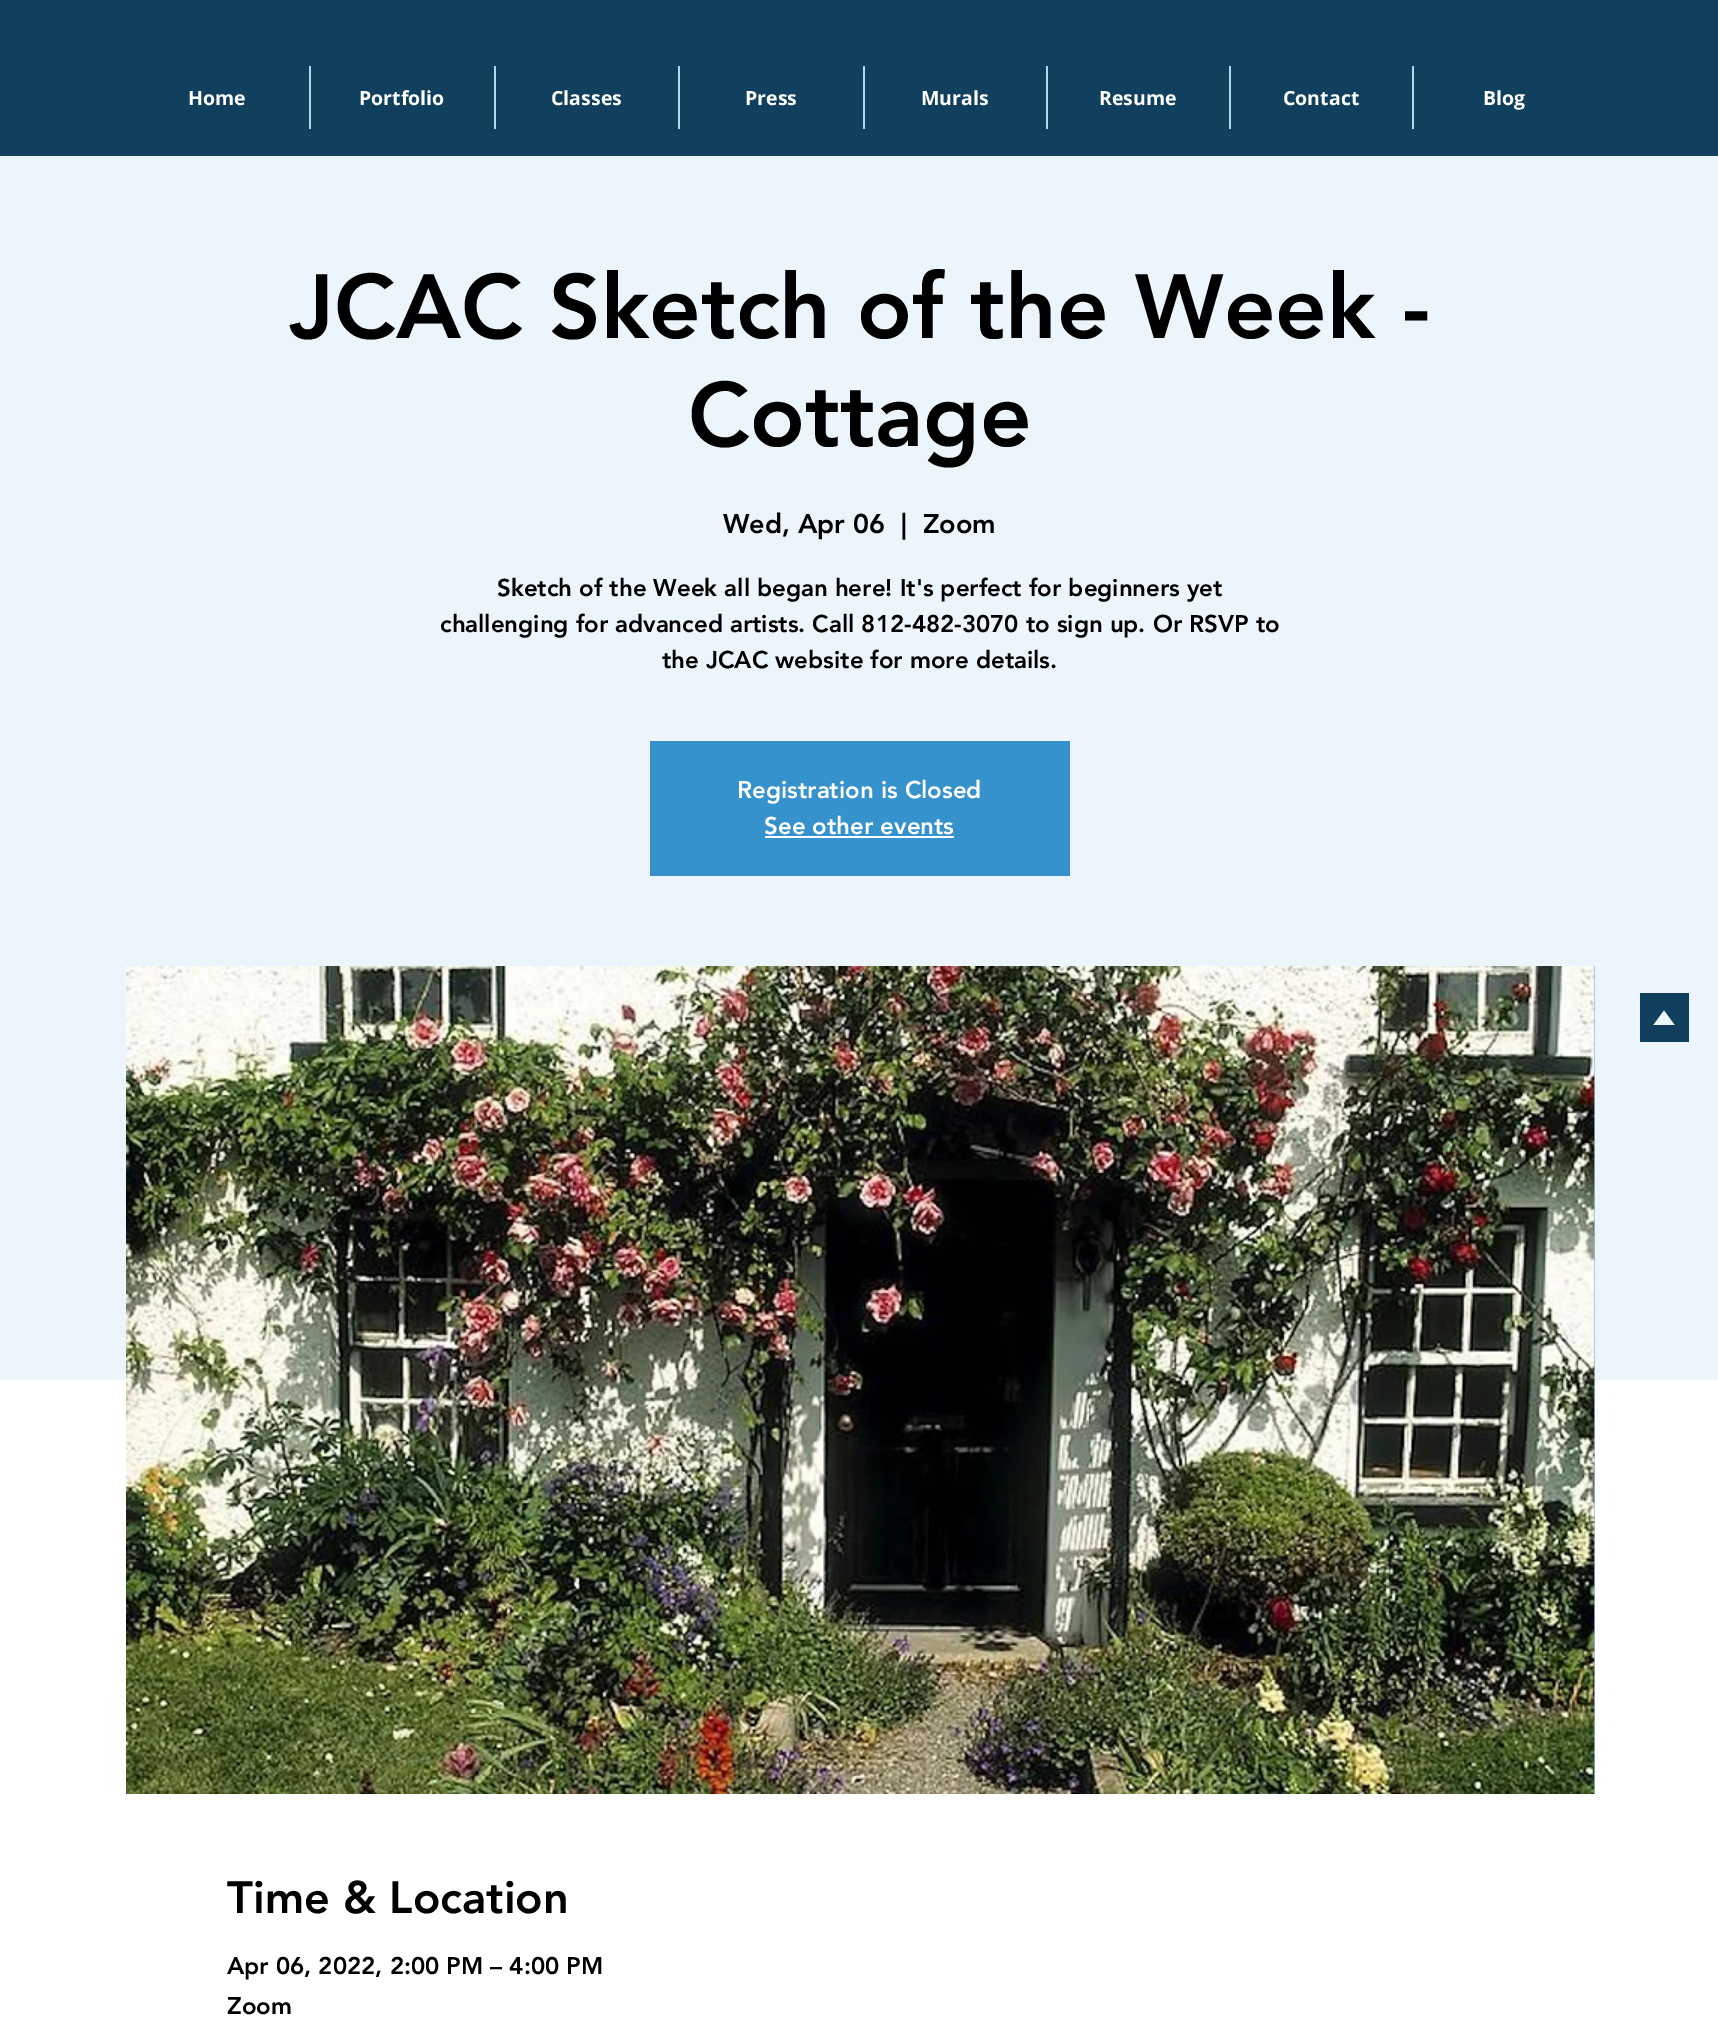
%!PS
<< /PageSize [1718 2034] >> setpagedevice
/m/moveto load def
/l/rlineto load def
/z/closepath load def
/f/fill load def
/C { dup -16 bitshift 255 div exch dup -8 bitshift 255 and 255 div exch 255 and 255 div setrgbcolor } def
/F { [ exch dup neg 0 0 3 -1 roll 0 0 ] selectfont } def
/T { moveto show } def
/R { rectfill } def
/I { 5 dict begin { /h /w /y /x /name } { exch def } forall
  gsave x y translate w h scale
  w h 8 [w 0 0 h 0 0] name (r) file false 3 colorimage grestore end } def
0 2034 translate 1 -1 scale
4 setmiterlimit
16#10405E C
0 0 1718 2034 R
/OpenSans-Bold 19.5 F
16#FFFFFF C
(Home) 188 105 T
16#B3D7ED C
309 66 2 63 R
16#FFFFFF C
(Portfolio) 359 105 T
16#B3D7ED C
494 66 2 63 R
16#FFFFFF C
(Classes) 551 105 T
16#B3D7ED C
678 66 2 63 R
16#FFFFFF C
(Press) 745 105 T
16#B3D7ED C
863 66 2 63 R
16#FFFFFF C
(Murals) 921 105 T
16#B3D7ED C
1046 66 2 63 R
16#FFFFFF C
(Resume) 1099 105 T
16#B3D7ED C
1229 66 2 63 R
16#FFFFFF C
(Contact) 1283 105 T
16#B3D7ED C
1412 66 2 63 R
16#FFFFFF C
(Blog) 1483 105 T
16#ECF5FB C
0 156 1718 1224 R
/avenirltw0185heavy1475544-Black 90 F
16#000000 C
(JCAC Sketch of the Week -) 289 338 T
(Cottage) 688 446 T
/avenirltw0185heavy1475544-Black 27 F
(Wed, Apr 06) 723 533 T
(|) 901 533 T
(Zoom) 923 533 T
/avenirltw0185heavy1475544-Black 24 F
(Sketch of the Week all began here! It's perfect for beginners yet) 497 596 T
(challenging for advanced artists. Call 812-482-3070 to sign up. Or RSVP to) 440 632 T
(the JCAC website for more details.) 662 668 T
16#3592CC C
650 741 420 135 R
16#FFFFFF C
(Registration is Closed) 737 798 T
(See other events) 764 834 T
765 836 189 2 R
0 1380 1718 654 R
16#8BBDDD C
1594 966 1 828 R
(1.rgb) 126 966 1469 828 I
/avenirltw0185heavy1475544-Black 45 F
16#000000 C
(Time & Location) 227 1913 T
/avenirltw0185heavy1475544-Black 24 F
(Apr 06, 2022, 2:00 PM – 4:00 PM) 227 1974 T
(Zoom) 227 2014 T
16#10405E C
1640 993 m 0 49 l 49 0 l 0 -49 l z 1653 1025 m 11 -15 l 11 15 l z f
showpage
